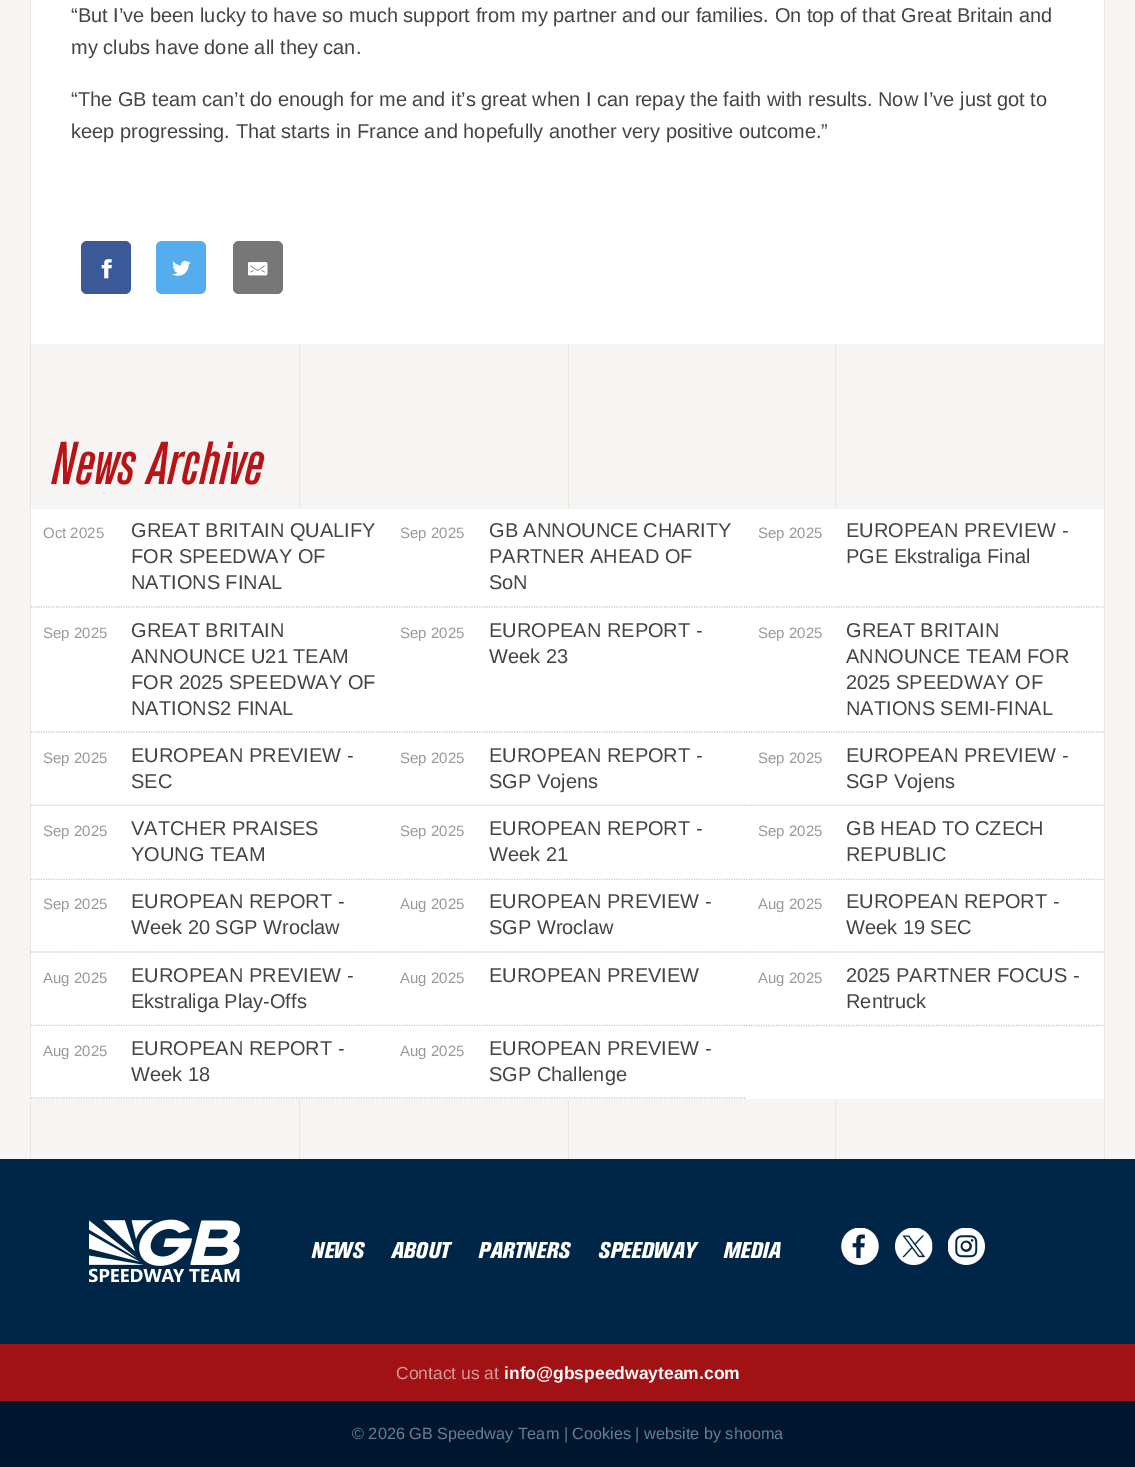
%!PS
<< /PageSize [1135 1467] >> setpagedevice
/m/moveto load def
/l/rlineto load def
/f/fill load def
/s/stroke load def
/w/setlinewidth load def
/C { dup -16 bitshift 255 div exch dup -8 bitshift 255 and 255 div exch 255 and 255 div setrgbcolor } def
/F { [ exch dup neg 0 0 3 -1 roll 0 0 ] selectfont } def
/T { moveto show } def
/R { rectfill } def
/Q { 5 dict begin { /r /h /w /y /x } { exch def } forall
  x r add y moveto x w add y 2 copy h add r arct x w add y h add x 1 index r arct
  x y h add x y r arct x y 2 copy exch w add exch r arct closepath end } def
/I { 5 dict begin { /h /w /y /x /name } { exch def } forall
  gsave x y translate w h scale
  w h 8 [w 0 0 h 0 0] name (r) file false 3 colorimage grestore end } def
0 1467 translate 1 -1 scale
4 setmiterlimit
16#F6F5F4 C
0 0 1135 1467 R
16#E8E7E3 C
30 0 1 1159 R
16#FFFFFF C
31 0 1073 344 R
/LiberationSans-Regular 20 F
16#444444 C
(“But I’ve been lucky to have so much support from my partner and our families. On top of that Great Britain and) 71 22 T
(my clubs have done all they can.) 71 54 T
(“The GB team can’t do enough for me and it’s great when I can repay the faith with results. Now I’ve just got to) 71 106 T
(keep progressing. That starts in France and hopefully another very positive outcome.”) 71 138 T
16#3B5998 C
81 241 50 53 6 Q f
(1.rgb) 101 259 11 20 I
16#55ACEE C
156 241 50 53 6 Q f
(2.rgb) 172 260 19 16 I
16#777777 C
233 241 50 53 6 Q f
(3.rgb) 248 262 20 14 I
/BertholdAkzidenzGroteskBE-MediumItalic 60 F
16#B91316 C
(News Archive) 51 484 T
16#E8E7E3 C
299 344 1 815 R
568 344 1 815 R
835 344 1 815 R
16#FFFFFF C
31 509 1073 590 R
16#CCCCCC C
1.2 w
[1.25 1.25] 0 setdash
31 607 m 358 0 l s
/LiberationSans-Regular 15 F
16#999999 C
(Oct 2025) 43 538 T
/LiberationSans-Regular 20 F
16#444444 C
(GREAT BRITAIN QUALIFY) 131 537 T
(FOR SPEEDWAY OF) 131 563 T
(NATIONS FINAL) 131 589 T
16#CCCCCC C
389 607 m 357 0 l s
/LiberationSans-Regular 15 F
16#999999 C
(Sep 2025) 400 538 T
/LiberationSans-Regular 20 F
16#444444 C
(GB ANNOUNCE CHARITY) 489 537 T
(PARTNER AHEAD OF) 489 563 T
(SoN) 489 589 T
16#CCCCCC C
746 607 m 358 0 l s
/LiberationSans-Regular 15 F
16#999999 C
(Sep 2025) 758 538 T
/LiberationSans-Regular 20 F
16#444444 C
(EUROPEAN PREVIEW -) 846 537 T
(PGE Ekstraliga Final) 846 563 T
16#CCCCCC C
31 732 m 358 0 l s
/LiberationSans-Regular 15 F
16#999999 C
(Sep 2025) 43 638 T
/LiberationSans-Regular 20 F
16#444444 C
(GREAT BRITAIN) 131 637 T
(ANNOUNCE U21 TEAM) 131 663 T
(FOR 2025 SPEEDWAY OF) 131 689 T
(NATIONS2 FINAL) 131 715 T
16#CCCCCC C
389 732 m 357 0 l s
/LiberationSans-Regular 15 F
16#999999 C
(Sep 2025) 400 638 T
/LiberationSans-Regular 20 F
16#444444 C
(EUROPEAN REPORT -) 489 637 T
(Week 23) 489 663 T
16#CCCCCC C
746 732 m 358 0 l s
/LiberationSans-Regular 15 F
16#999999 C
(Sep 2025) 758 638 T
/LiberationSans-Regular 20 F
16#444444 C
(GREAT BRITAIN) 846 637 T
(ANNOUNCE TEAM FOR) 846 663 T
(2025 SPEEDWAY OF) 846 689 T
(NATIONS SEMI-FINAL) 846 715 T
16#CCCCCC C
31 805.5 m 358 0 l s
/LiberationSans-Regular 15 F
16#999999 C
(Sep 2025) 43 763 T
/LiberationSans-Regular 20 F
16#444444 C
(EUROPEAN PREVIEW -) 131 762 T
(SEC) 131 788 T
16#CCCCCC C
389 805.5 m 357 0 l s
/LiberationSans-Regular 15 F
16#999999 C
(Sep 2025) 400 763 T
/LiberationSans-Regular 20 F
16#444444 C
(EUROPEAN REPORT -) 489 762 T
(SGP Vojens) 489 788 T
16#CCCCCC C
746 805.5 m 358 0 l s
/LiberationSans-Regular 15 F
16#999999 C
(Sep 2025) 758 763 T
/LiberationSans-Regular 20 F
16#444444 C
(EUROPEAN PREVIEW -) 846 762 T
(SGP Vojens) 846 788 T
16#FFFFFF C
31 806 356 1 R
16#CCCCCC C
31 879.5 m 358 0 l s
/LiberationSans-Regular 15 F
16#999999 C
(Sep 2025) 43 836 T
/LiberationSans-Regular 20 F
16#444444 C
(VATCHER PRAISES) 131 835 T
(YOUNG TEAM) 131 861 T
16#FFFFFF C
389 806 356 1 R
16#CCCCCC C
389 879.5 m 357 0 l s
/LiberationSans-Regular 15 F
16#999999 C
(Sep 2025) 400 836 T
/LiberationSans-Regular 20 F
16#444444 C
(EUROPEAN REPORT -) 489 835 T
(Week 21) 489 861 T
16#FFFFFF C
746 806 356 1 R
16#CCCCCC C
746 879.5 m 358 0 l s
/LiberationSans-Regular 15 F
16#999999 C
(Sep 2025) 758 836 T
/LiberationSans-Regular 20 F
16#444444 C
(GB HEAD TO CZECH) 846 835 T
(REPUBLIC) 846 861 T
16#FFFFFF C
31 880 356 1 R
16#CCCCCC C
31 952 m 358 0 l s
/LiberationSans-Regular 15 F
16#999999 C
(Sep 2025) 43 909 T
/LiberationSans-Regular 20 F
16#444444 C
(EUROPEAN REPORT -) 131 908 T
(Week 20 SGP Wroclaw) 131 934 T
16#FFFFFF C
389 880 356 1 R
16#CCCCCC C
389 952 m 357 0 l s
/LiberationSans-Regular 15 F
16#999999 C
(Aug 2025) 400 909 T
/LiberationSans-Regular 20 F
16#444444 C
(EUROPEAN PREVIEW -) 489 908 T
(SGP Wroclaw) 489 934 T
16#FFFFFF C
746 880 356 1 R
16#CCCCCC C
746 952 m 358 0 l s
/LiberationSans-Regular 15 F
16#999999 C
(Aug 2025) 758 909 T
/LiberationSans-Regular 20 F
16#444444 C
(EUROPEAN REPORT -) 846 908 T
(Week 19 SEC) 846 934 T
16#CCCCCC C
31 1025.5 m 358 0 l s
/LiberationSans-Regular 15 F
16#999999 C
(Aug 2025) 43 983 T
/LiberationSans-Regular 20 F
16#444444 C
(EUROPEAN PREVIEW -) 131 982 T
(Ekstraliga Play-Offs) 131 1008 T
16#CCCCCC C
389 1025.5 m 357 0 l s
/LiberationSans-Regular 15 F
16#999999 C
(Aug 2025) 400 983 T
/LiberationSans-Regular 20 F
16#444444 C
(EUROPEAN PREVIEW) 489 982 T
16#CCCCCC C
746 1025.5 m 358 0 l s
/LiberationSans-Regular 15 F
16#999999 C
(Aug 2025) 758 983 T
/LiberationSans-Regular 20 F
16#444444 C
(2025 PARTNER FOCUS -) 846 982 T
(Rentruck) 846 1008 T
16#FFFFFF C
31 1026 356 1 R
16#CCCCCC C
31 1098 m 358 0 l s
/LiberationSans-Regular 15 F
16#999999 C
(Aug 2025) 43 1056 T
/LiberationSans-Regular 20 F
16#444444 C
(EUROPEAN REPORT -) 131 1055 T
(Week 18) 131 1081 T
16#FFFFFF C
389 1026 356 1 R
16#CCCCCC C
389 1098 m 357 0 l s
/LiberationSans-Regular 15 F
16#999999 C
(Aug 2025) 400 1056 T
/LiberationSans-Regular 20 F
16#444444 C
(EUROPEAN PREVIEW -) 489 1055 T
(SGP Challenge) 489 1081 T
16#E8E7E3 C
1104 0 1 1159 R
16#002647 C
0 1159 1135 185 R
(4.rgb) 89 1219 151 64 I
/BertholdAkzidenzGroteskBE-BoldItalic 22.5 F
16#FFFFFF C
(NEWS) 311 1258 T
(ABOUT) 391 1258 T
(PARTNERS) 478 1258 T
(SPEEDWAY) 598 1258 T
(MEDIA) 723 1258 T
(5.rgb) 841 1228 38 37 I
(6.rgb) 895 1228 38 37 I
(7.rgb) 948 1228 37 37 I
16#A21113 C
0 1344 1135 57 R
/LiberationSans-Regular 17.5 F
16#D59A9B C
(Contact us at) 396 1379 T
/LiberationSans-Bold 17.5 F
16#FFFFFF C
(info@gbspeedwayteam.com) 504 1379 T
16#00162E C
0 1401 1135 66 R
/LiberationSans-Regular 16.25 F
16#6B7E8F C
(© 2026 GB Speedway Team | Cookies | website by shooma) 352 1439 T
showpage
